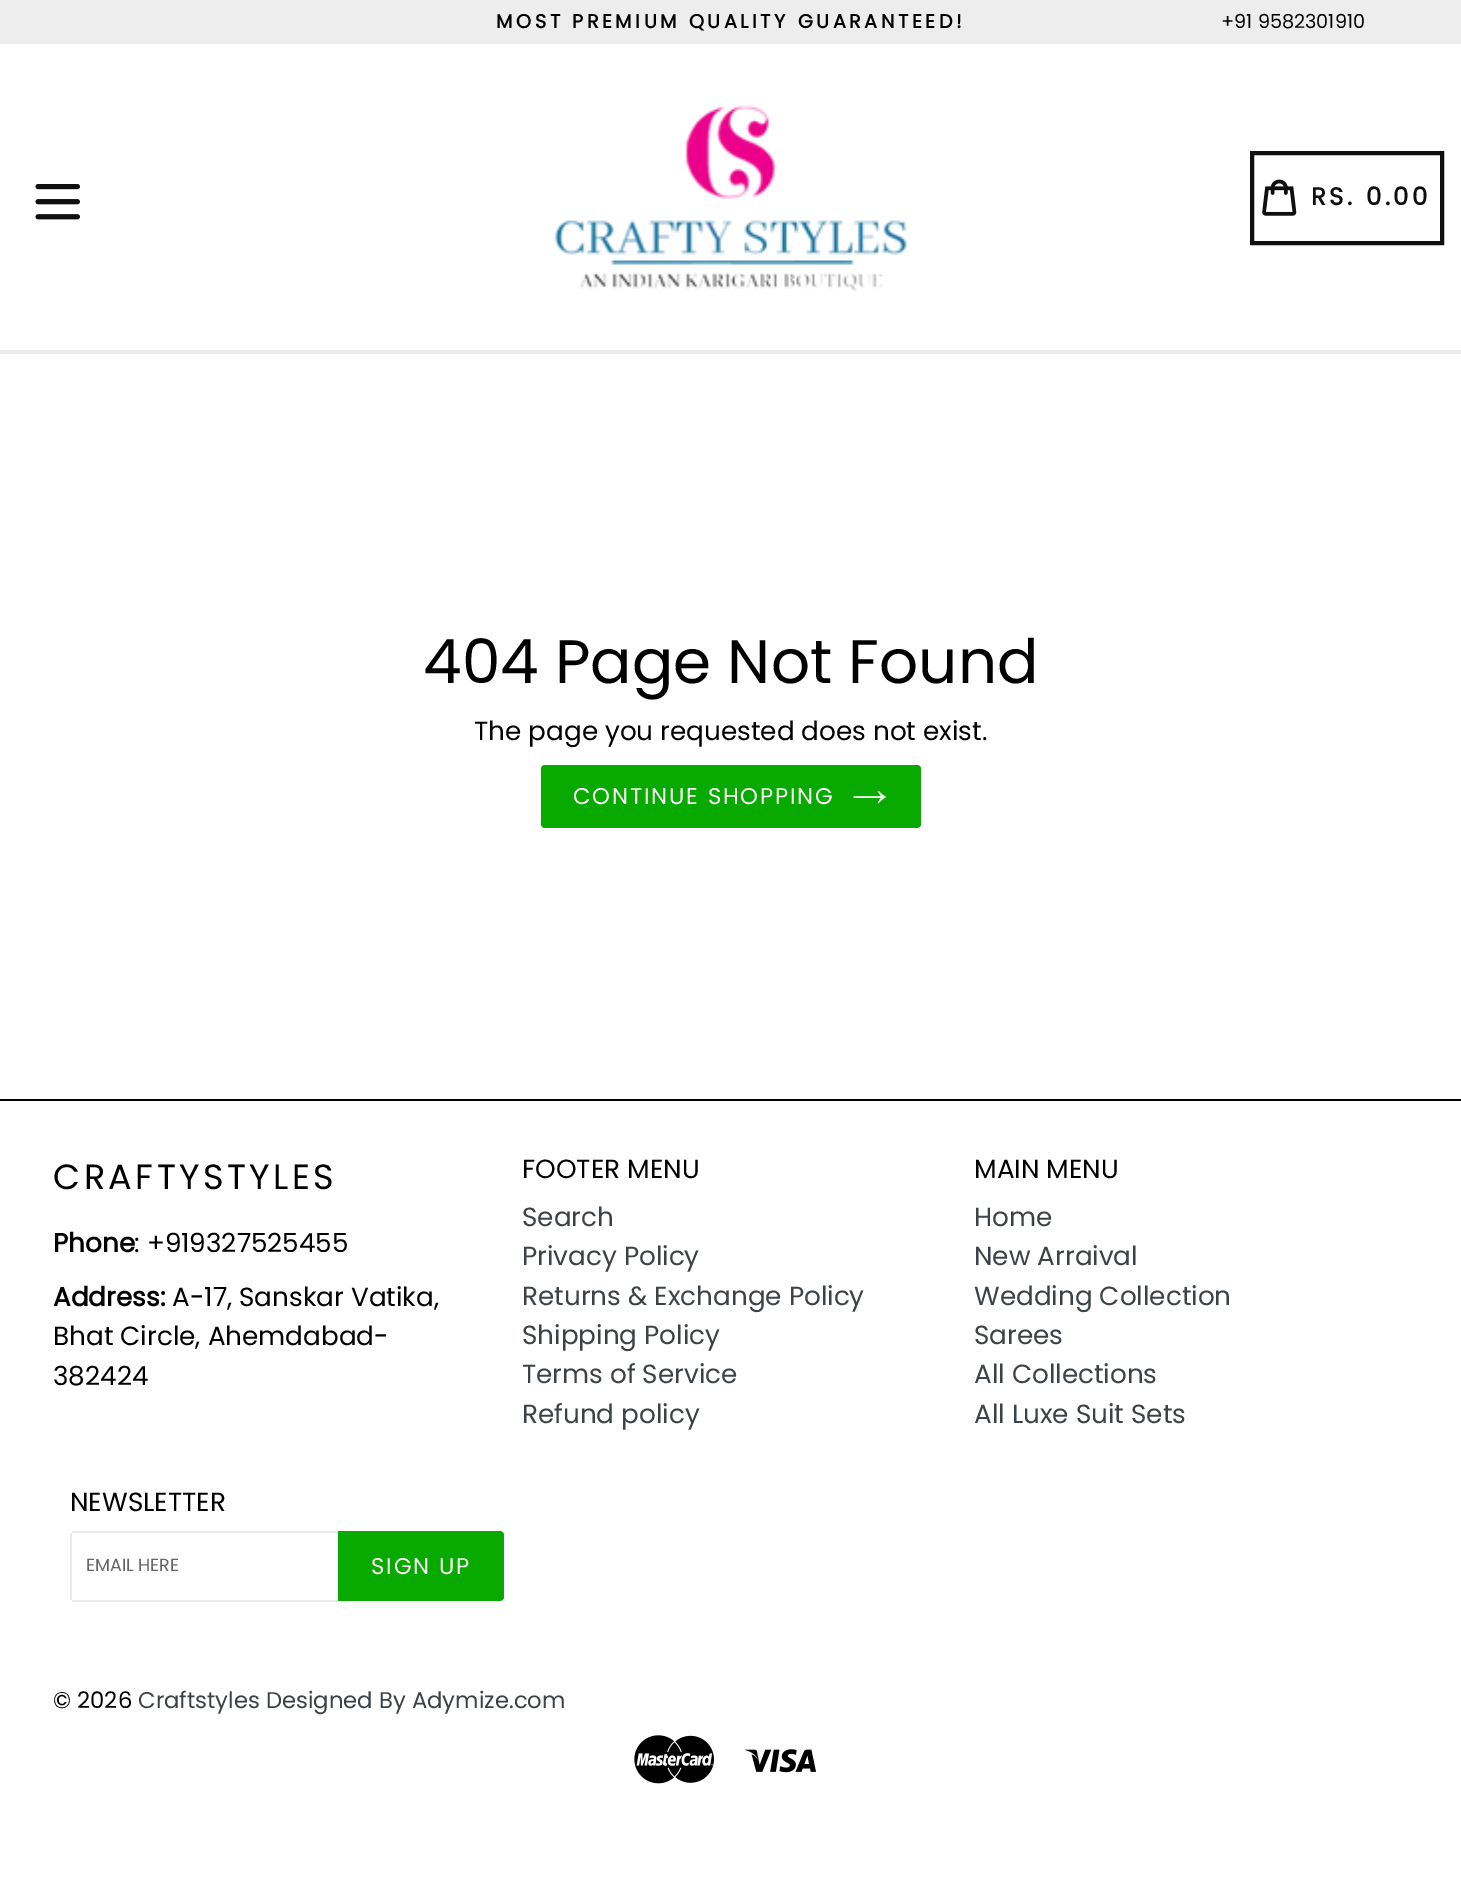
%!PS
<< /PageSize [1461 1893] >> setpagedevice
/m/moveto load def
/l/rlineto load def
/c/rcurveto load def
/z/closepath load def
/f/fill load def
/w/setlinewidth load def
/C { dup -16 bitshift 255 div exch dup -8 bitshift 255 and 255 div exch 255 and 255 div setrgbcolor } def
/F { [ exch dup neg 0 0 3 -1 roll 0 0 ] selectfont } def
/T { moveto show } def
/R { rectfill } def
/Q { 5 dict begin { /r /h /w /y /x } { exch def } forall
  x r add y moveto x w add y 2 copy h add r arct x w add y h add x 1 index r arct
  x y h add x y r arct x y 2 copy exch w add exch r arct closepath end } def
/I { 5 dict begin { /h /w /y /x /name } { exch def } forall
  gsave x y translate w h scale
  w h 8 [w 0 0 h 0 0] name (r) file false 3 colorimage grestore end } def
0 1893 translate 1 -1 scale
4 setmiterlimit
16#FFFFFF C
0 0 1461 1893 R
16#EDEDED C
0 0 1461 44 R
/Poppins-Bold 19.25 F
16#000000 C
496 28 m 3.5 0 (MOST PREMIUM QUALITY GUARANTEED!) ashow
/Poppins-Regular 19.25 F
(+91 9582301910) 1221 28 T
16#EBEBEB C
0 350 1461 4 R
(1.rgb) 35 184 45 36 I
(2.rgb) 554 105 353 186 I
16#0F0F0F C
4 w
1252 153 190 90 rectstroke
(3.rgb) 1262 179 35 37 I
/Poppins-Bold 24.5 F
1311 205 m 3.5 0 (RS. 0.00) ashow
/Poppins-Regular 61.25 F
16#000000 C
(404 Page Not Found) 423 683 T
/Poppins-Regular 26.25 F
(The page you requested does not exist.) 474 740 T
16#08AA00 C
541 765 380 63 4 Q f
/Poppins-Regular 22.75 F
16#FFFFFF C
573 804 m 1.8 0 (CONTINUE SHOPPING) ashow
(4.rgb) 853 790 33 14 I
16#000000 C
0 1099 1461 2 R
/Poppins-Regular 35 F
53 1189 m 3.5 0 (CRAFTYSTYLES) ashow
/Poppins-Bold 26.25 F
(Phone) 53 1252 T
/Poppins-Regular 26.25 F
(: +919327525455) 134 1252 T
/Poppins-Bold 26.25 F
(Address:) 53 1306 T
/Poppins-Regular 26.25 F
(A-17, Sanskar Vatika,) 172 1306 T
(Bhat Circle, Ahemdabad-) 53 1345 T
(382424) 53 1385 T
(FOOTER MENU) 522 1178 T
16#3D4246 C
(Search) 522 1226 T
(Privacy Policy) 522 1265 T
(Returns & Exchange Policy) 522 1305 T
(Shipping Policy) 522 1344 T
(Terms of Service) 522 1383 T
(Refund policy) 522 1423 T
16#000000 C
(MAIN MENU) 974 1178 T
16#3D4246 C
(Home) 974 1226 T
(New Arraival) 974 1265 T
(Wedding Collection) 974 1305 T
(Sarees) 974 1344 T
(All Collections) 974 1383 T
(All Luxe Suit Sets) 974 1423 T
16#000000 C
(NEWSLETTER) 70 1511 T
16#EBEBEB C
72 1531 266 2 R
72 1600 266 2 R
70 1533 2 67 R
/Poppins-Regular 17.5 F
16#666666 C
(EMAIL HERE) 86 1571 T
16#08AA00 C
338 1531 m 162 0 l 2 0 4 2 4 4 c 0 62 l 0 2 -2 4 -4 4 c -162 0 l z f
/Poppins-Regular 22.75 F
16#FFFFFF C
371 1574 m 1.8 0 (SIGN UP) ashow
16#000000 C
(© 2026) 53 1708 T
16#3D4246 C
(Craftstyles Designed By Adymize.com) 138 1708 T
(5.rgb) 634 1735 80 49 I
(6.rgb) 745 1749 71 24 I
showpage
